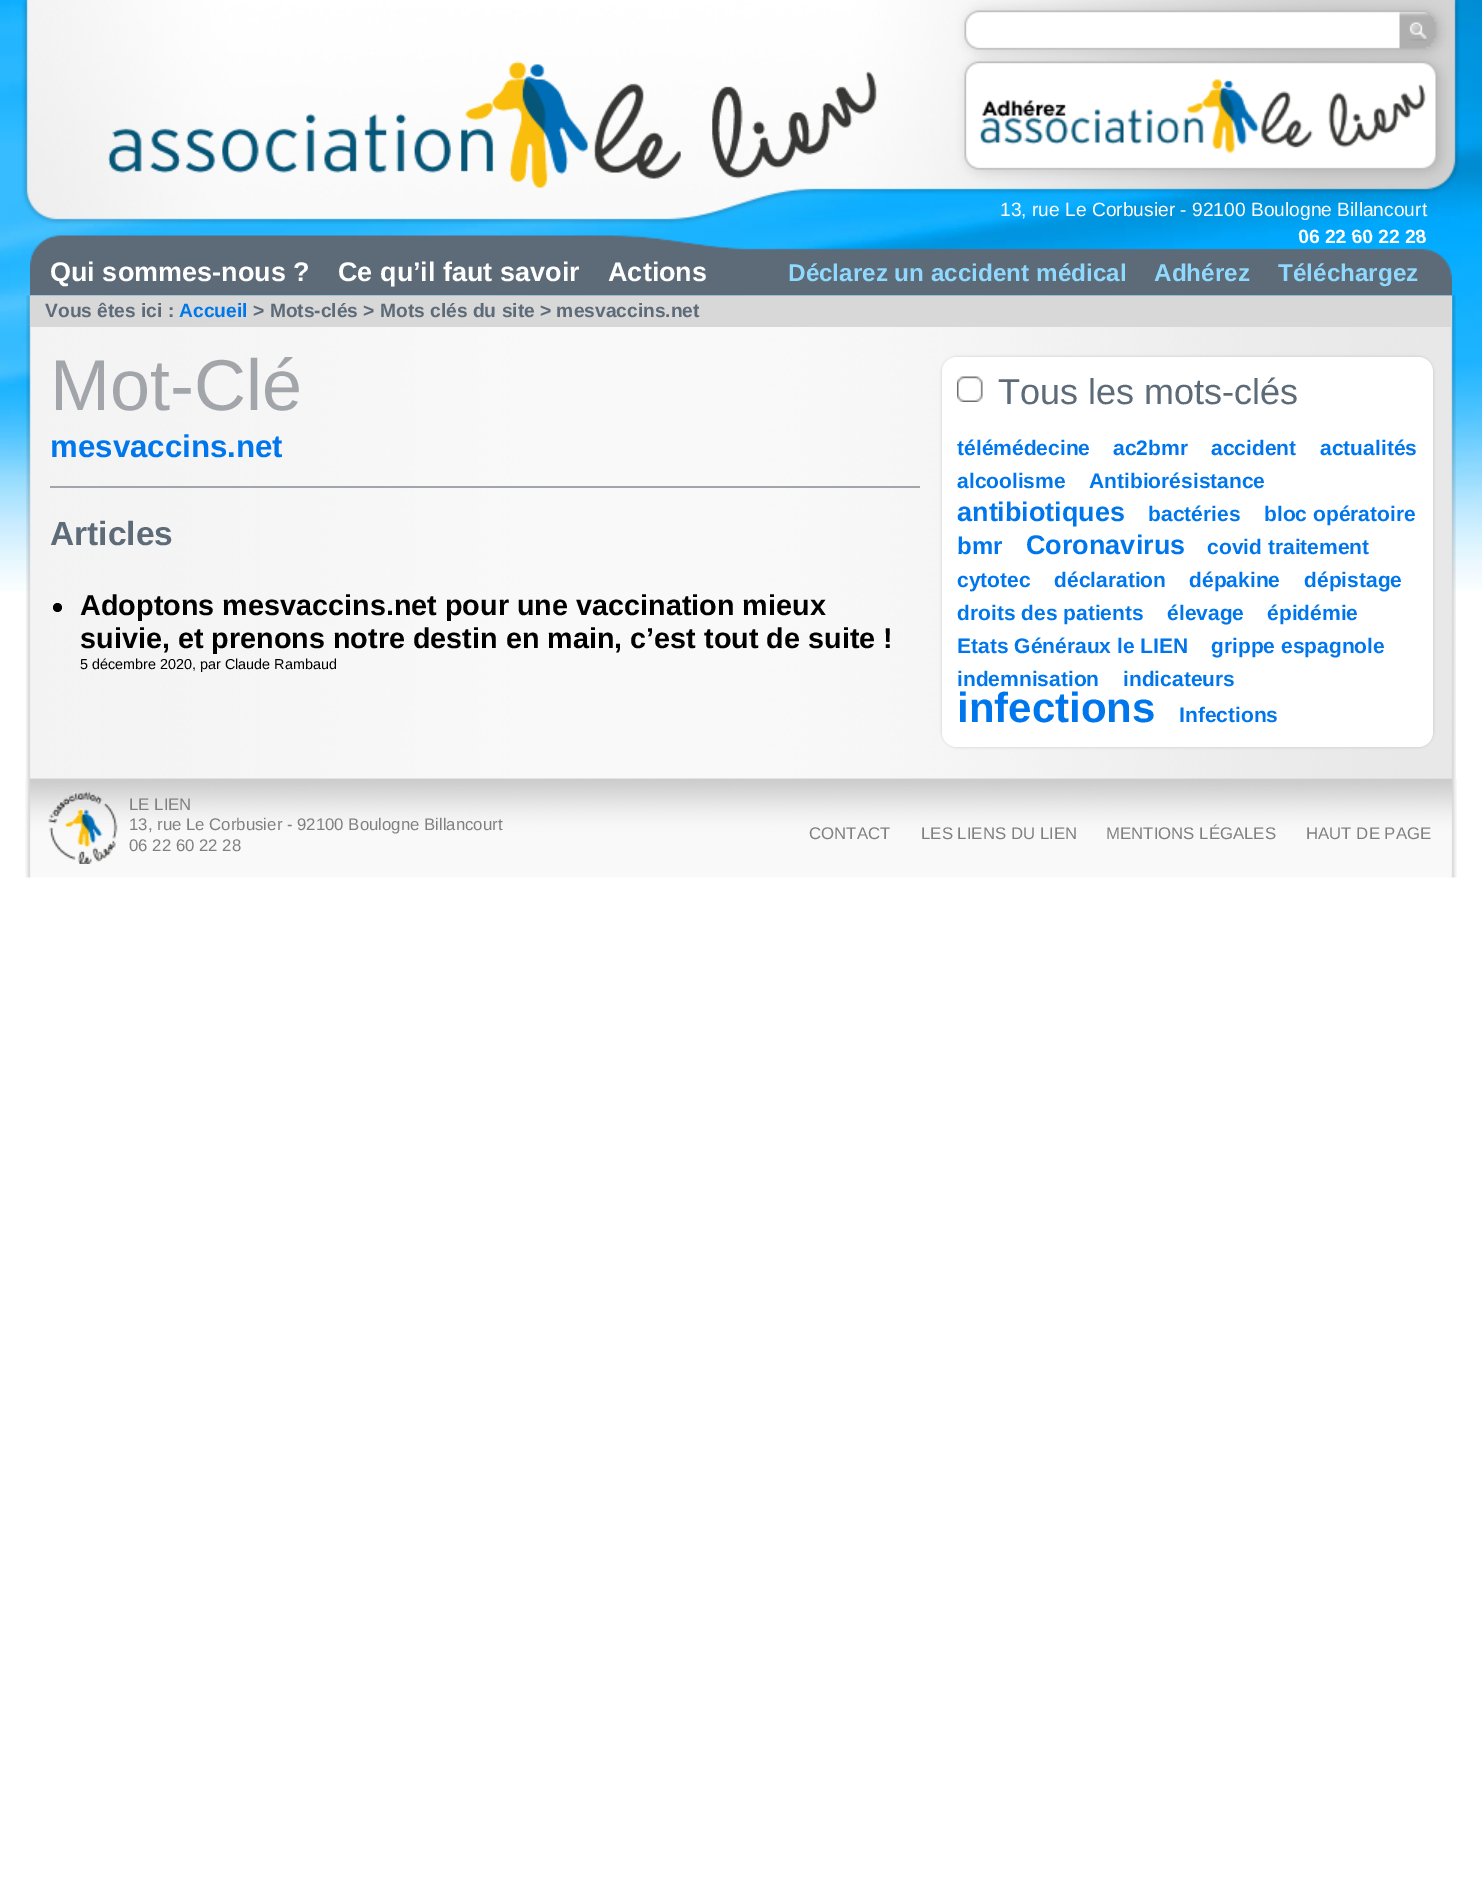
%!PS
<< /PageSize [1482 1889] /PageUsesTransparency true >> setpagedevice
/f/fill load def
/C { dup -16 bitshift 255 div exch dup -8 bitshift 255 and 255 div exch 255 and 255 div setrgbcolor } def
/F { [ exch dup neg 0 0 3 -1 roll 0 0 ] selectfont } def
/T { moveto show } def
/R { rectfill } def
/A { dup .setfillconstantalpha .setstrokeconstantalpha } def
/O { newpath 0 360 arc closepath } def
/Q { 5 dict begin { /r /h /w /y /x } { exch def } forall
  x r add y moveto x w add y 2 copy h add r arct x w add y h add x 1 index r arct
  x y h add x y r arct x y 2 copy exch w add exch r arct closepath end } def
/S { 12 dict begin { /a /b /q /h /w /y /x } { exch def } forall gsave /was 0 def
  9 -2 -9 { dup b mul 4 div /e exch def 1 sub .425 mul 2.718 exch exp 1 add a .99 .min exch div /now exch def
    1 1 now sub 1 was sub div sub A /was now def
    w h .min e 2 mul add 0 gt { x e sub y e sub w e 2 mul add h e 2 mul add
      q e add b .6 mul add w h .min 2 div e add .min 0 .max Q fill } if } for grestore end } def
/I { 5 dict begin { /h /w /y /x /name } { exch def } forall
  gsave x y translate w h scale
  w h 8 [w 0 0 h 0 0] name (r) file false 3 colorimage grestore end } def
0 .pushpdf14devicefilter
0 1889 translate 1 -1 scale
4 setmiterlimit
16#FFFFFF C
0 0 1482 1889 R
(1.rgb) 0 0 1482 591 I
(2.rgb) 22 0 1438 224 I
(3.rgb) 108 61 769 127 I
(4.rgb) 979 78 447 76 I
/LiberationSans-Regular 19.2 F
(13, rue Le Corbusier - 92100 Boulogne Billancourt) 1000 216 T
/LiberationSans-Bold 19.2 F
(06 22 60 22 28) 1298 243 T
(5.rgb) 30 235 1422 61 I
/LiberationSans-Bold 27 F
(Qui sommes-nous ?) 50 281 T
(Ce qu’il faut savoir) 338 281 T
(Actions) 608 281 T
/LiberationSans-Bold 24.25 F
16#8FD9FF C
(Déclarez un accident médical) 788 281 T
(Adhérez) 1154 281 T
(Téléchargez) 1278 281 T
(6.rgb) 26 295 1430 484 I
16#D8D8D8 C
30 296 1422 31 R
/LiberationSans-Bold 19.2 F
16#5D6B79 C
(Vous êtes ici :) 45 317 T
16#0076ED C
(Accueil) 179 317 T
16#5D6B79 C
(> Mots-clés > Mots clés du site > mesvaccins.net) 253 317 T
/LiberationSans-Regular 72 F
16#A2A5A9 C
(Mot-Clé) 50 410 T
/LiberationSans-Bold 31.25 F
16#0076ED C
(mesvaccins.net) 50 457 T
16#A2A5A9 C
50 486 870 2 R
/LiberationSans-Bold 33.5 F
16#5D6B79 C
(Articles) 50 545 T
16#000000 C
57.5 607.5 4.5 O f
/LiberationSans-Bold 28.8 F
(Adoptons mesvaccins.net pour une vaccination mieux) 80 615 T
(suivie, et prenons notre destin en main, c’est tout de suite !) 80 648 T
/LiberationSans-Regular 14.4 F
(5 décembre 2020, par Claude Rambaud) 80 669 T
942 357 491 390 15 1.5 .15 S
16#FFFFFF C
942 357 491 390 15 Q f
(7.rgb) 957 376 26 26 I
/LiberationSans-Regular 36 F
16#5D6B79 C
(Tous les mots-clés) 998 404 T
/LiberationSans-Bold 21 F
16#0076ED C
(télémédecine) 957 455 T
(ac2bmr) 1113 455 T
(accident) 1211 455 T
(actualités) 1320 455 T
(alcoolisme) 957 488 T
(Antibiorésistance) 1089 488 T
/LiberationSans-Bold 27 F
(antibiotiques) 957 521 T
/LiberationSans-Bold 21 F
(bactéries) 1148 521 T
(bloc opératoire) 1264 521 T
/LiberationSans-Bold 24 F
(bmr) 957 554 T
/LiberationSans-Bold 27 F
(Coronavirus) 1026 554 T
/LiberationSans-Bold 21 F
(covid traitement) 1207 554 T
(cytotec) 957 587 T
(déclaration) 1054 587 T
(dépakine) 1189 587 T
(dépistage) 1304 587 T
(droits des patients) 957 620 T
(élevage) 1167 620 T
(épidémie) 1267 620 T
(Etats Généraux le LIEN) 957 653 T
(grippe espagnole) 1211 653 T
(indemnisation) 957 686 T
(indicateurs) 1123 686 T
/LiberationSans-Bold 42 F
(infections) 957 722 T
/LiberationSans-Bold 21 F
(Infections) 1179 722 T
(8.rgb) 25 778 1432 100 I
(9.rgb) 48 791 70 73 I
/LiberationSans-Regular 16.8 F
16#808080 C
(LE LIEN) 129 810 T
(13, rue Le Corbusier - 92100 Boulogne Billancourt) 129 830 T
(06 22 60 22 28) 129 851 T
(CONTACT) 809 839 T
(LES LIENS DU LIEN) 921 839 T
(MENTIONS LÉGALES) 1106 839 T
(HAUT DE PAGE) 1306 839 T
.poppdf14devicefilter showpage
